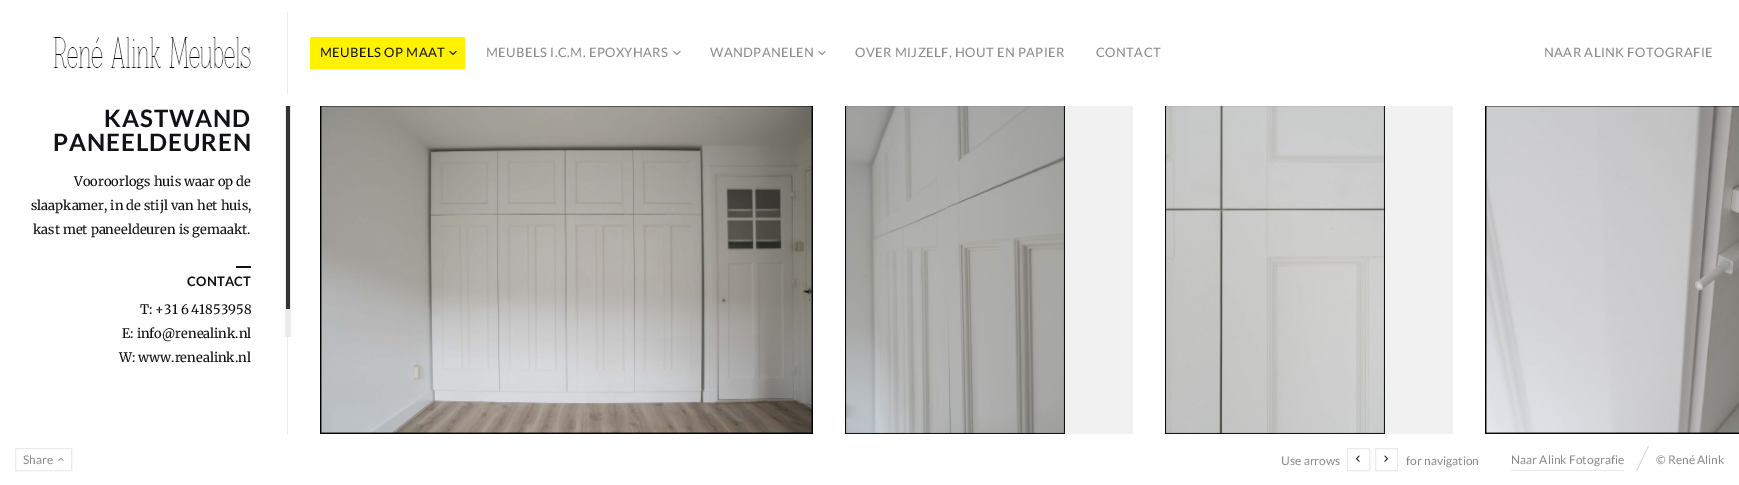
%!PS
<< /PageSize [1739 485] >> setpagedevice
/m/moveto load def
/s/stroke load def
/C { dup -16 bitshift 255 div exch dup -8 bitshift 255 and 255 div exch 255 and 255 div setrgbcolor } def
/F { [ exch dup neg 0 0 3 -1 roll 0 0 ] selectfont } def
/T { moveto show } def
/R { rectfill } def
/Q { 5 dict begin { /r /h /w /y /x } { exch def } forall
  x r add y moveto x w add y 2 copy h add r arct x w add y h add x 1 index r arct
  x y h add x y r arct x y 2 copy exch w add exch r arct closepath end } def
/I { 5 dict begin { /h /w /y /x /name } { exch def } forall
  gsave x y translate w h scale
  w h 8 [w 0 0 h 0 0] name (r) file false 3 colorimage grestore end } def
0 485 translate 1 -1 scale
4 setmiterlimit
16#FFFFFF C
0 0 1739 485 R
16#EBEBEB C
285 105 6 232 R
16#333333 C
286 105 4 204 R
16#FFFFFF C
285 105 6 1 R
16#EBEBEB C
287 12 1 82 R
(1.rgb) 52 36 200 34 I
16#FFF200 C
310 37 155 32 R
/Lato-Regular 13 F
16#111116 C
320 57 m .4 0 (MEUBELS OP MAAT) ashow
(2.rgb) 449 51 8 4 I
16#8A8A8A C
486 57 m .4 0 (MEUBELS I.C.M. EPOXYHARS) ashow
(3.rgb) 673 51 8 4 I
710 57 m .4 0 (WANDPANELEN) ashow
(3.rgb) 818 51 8 4 I
855 57 m .4 0 (OVER MIJZELF, HOUT EN PAPIER) ashow
1096 57 m .4 0 (CONTACT) ashow
1544 57 m .4 0 (NAAR ALINK FOTOGRAFIE) ashow
16#EBEBEB C
287 337 1 97 R
/Lato-Bold 24 F
16#111116 C
104 127 m 1 0 (KASTWAND) ashow
53 151 m 1 0 (PANEELDEUREN) ashow
/Merriweather-Light 13 F
(Vooroorlogs huis waar op de) 74 186 T
(slaapkamer, in de stijl van het huis,) 31 210 T
(kast met paneeldeuren is gemaakt.) 33 234 T
236 266 15 2 R
/Lato-Bold 13 F
187 286 m .25 0 (CONTACT) ashow
/Merriweather-Light 13 F
(T: +31 6 41853958) 140 314 T
(E: info@renealink.nl) 122 338 T
(W: www.renealink.nl) 119 362 T
(4.rgb) 320 106 493 328 I
16#F1F1F1 C
1065 106 68 328 R
(5.rgb) 845 106 220 328 I
1385 106 68 328 R
(6.rgb) 1165 106 220 328 I
(7.rgb) 1485 106 254 328 I
16#EBEBEB C
15.5 448.5 56 22 rectstroke
/Lato-Regular 12 F
16#8A8A8A C
(Share) 23 464 T
(8.rgb) 58 458 6 3 I
(Use arrows) 1281 465 T
16#EAEAEA C
1347.5 448.5 22 22 .5 Q s
(9.rgb) 1356 455 4 7 I
1375.5 448.5 22 22 .5 Q s
(10.rgb) 1384 455 4 7 I
16#8A8A8A C
(for navigation) 1406 465 T
16#EBEBEB C
1511 470 113 1 R
16#8A8A8A C
(Naar Alink Fotografie) 1511 464 T
(11.rgb) 1636 446 13 25 I
(© René Alink) 1656 464 T
showpage
